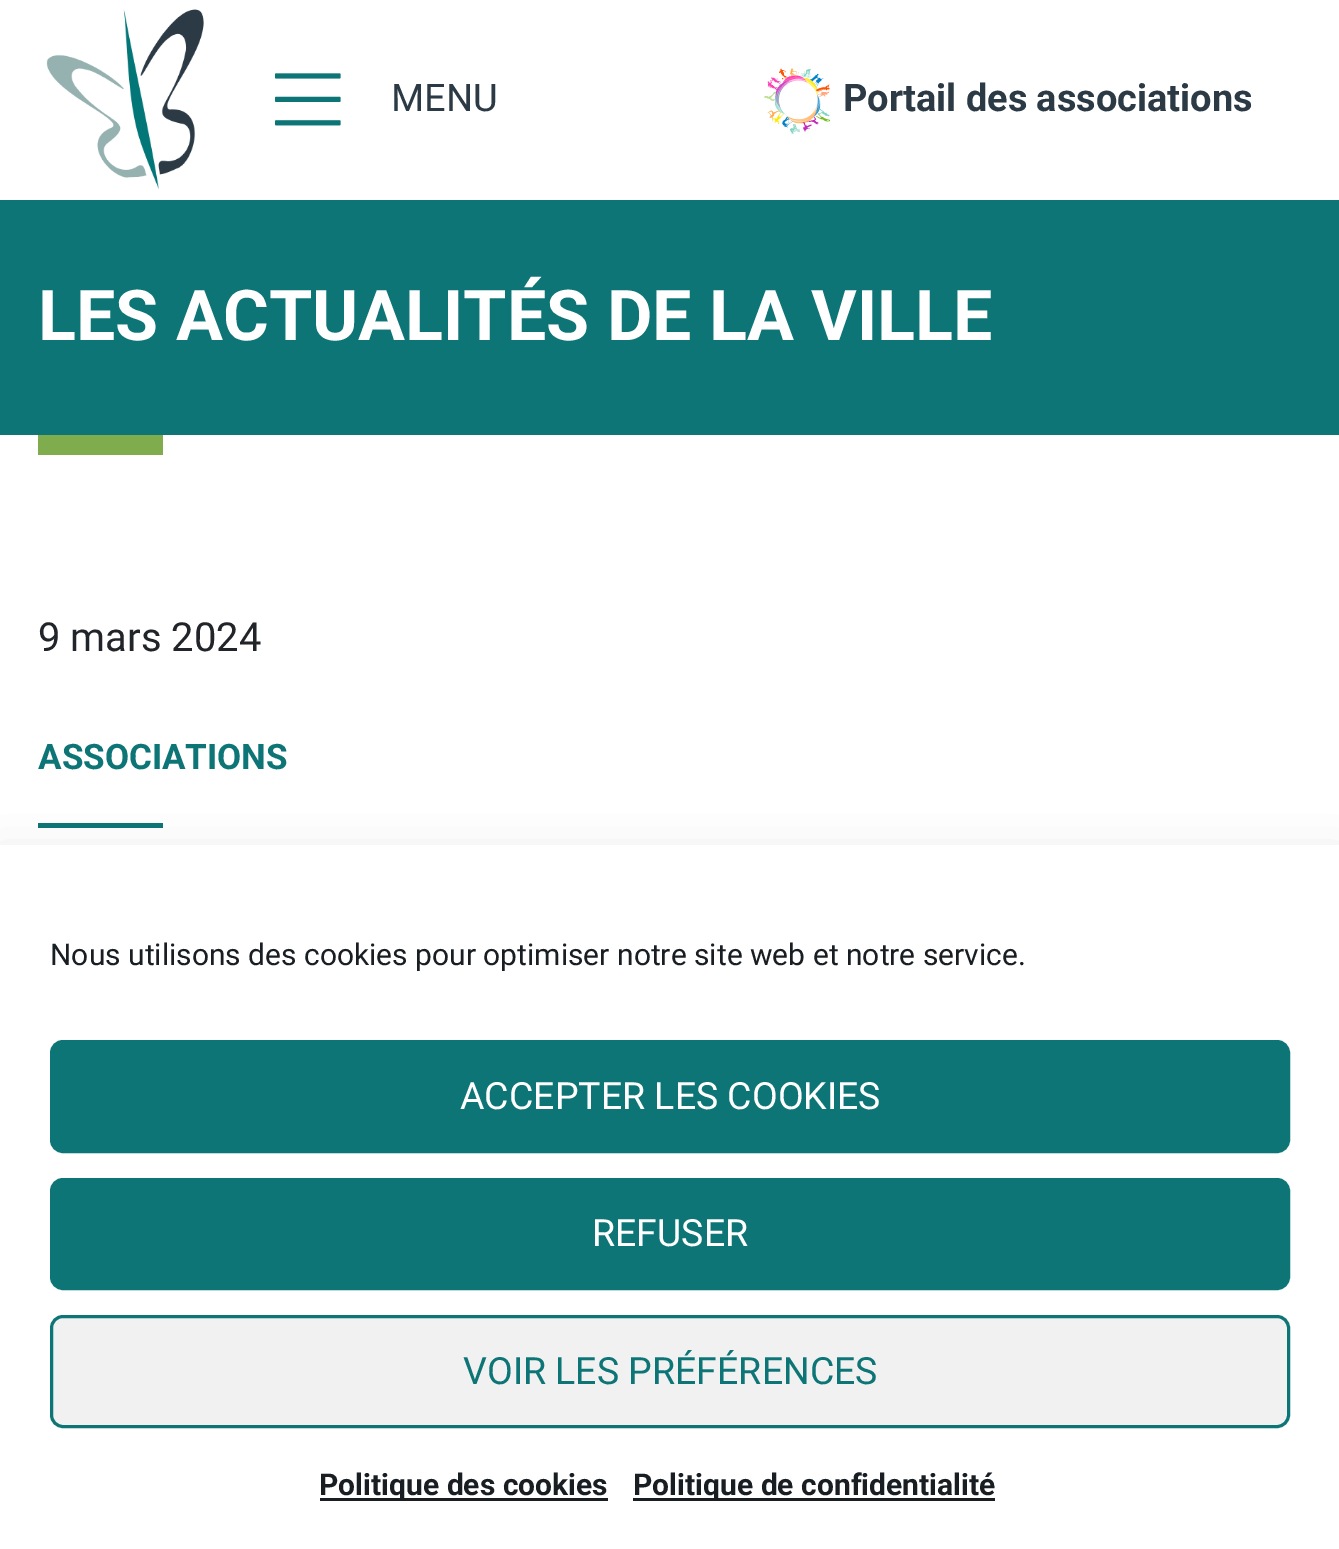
%!PS
<< /PageSize [1339 1549] /PageUsesTransparency true >> setpagedevice
/f/fill load def
/s/stroke load def
/q/gsave load def
/Q_/grestore load def
/w/setlinewidth load def
/C { dup -16 bitshift 255 div exch dup -8 bitshift 255 and 255 div exch 255 and 255 div setrgbcolor } def
/F { [ exch dup neg 0 0 3 -1 roll 0 0 ] selectfont } def
/T { moveto show } def
/R { rectfill } def
/A { dup .setfillconstantalpha .setstrokeconstantalpha } def
/Q { 5 dict begin { /r /h /w /y /x } { exch def } forall
  x r add y moveto x w add y 2 copy h add r arct x w add y h add x 1 index r arct
  x y h add x y r arct x y 2 copy exch w add exch r arct closepath end } def
/S { 12 dict begin { /a /b /q /h /w /y /x } { exch def } forall gsave /was 0 def
  9 -2 -9 { dup b mul 4 div /e exch def 1 sub .425 mul 2.718 exch exp 1 add a .99 .min exch div /now exch def
    1 1 now sub 1 was sub div sub A /was now def
    w h .min e 2 mul add 0 gt { x e sub y e sub w e 2 mul add h e 2 mul add
      q e add b .6 mul add w h .min 2 div e add .min 0 .max Q fill } if } for grestore end } def
/I { 5 dict begin { /h /w /y /x /name } { exch def } forall
  gsave x y translate w h scale
  w h 8 [w 0 0 h 0 0] name (r) file false 3 colorimage grestore end } def
0 .pushpdf14devicefilter
0 1549 translate 1 -1 scale
4 setmiterlimit
16#FFFFFF C
0 0 1339 1549 R
(1.rgb) 46 9 158 180 I
(2.rgb) 275 73 66 53 I
/Roboto-Regular 38 F
16#2B3A44 C
(MENU) 391 111 T
(3.rgb) 764 68 67 66 I
/Roboto-Bold 38 F
(Portail des associations) 843 111 T
16#0E7577 C
0 200 1339 235 R
/Roboto-Bold 70 F
16#FFFFFF C
(LES ACTUALITÉS DE LA VILLE) 38 340 T
16#7FAC4D C
38 435 125 20 R
/Roboto-Regular 40 F
16#212529 C
(9 mars 2024) 38 651 T
/Roboto-Bold 35 F
16#0E7577 C
(ASSOCIATIONS) 38 769 T
38 823 125 5 R
16#000000 C
0 870 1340 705 0 25 .19 S
16#FFFFFF C
0 845 1339 704 R
/Roboto-Regular 30 F
16#191E23 C
(Nous utilisons des cookies pour optimiser notre site web et notre service.) 50 965 T
16#0E7577 C
51.5 1041.5 1237 110 11.5 Q q f Q_
3 w
s
/Roboto-Regular 37.5 F
16#FFFFFF C
(ACCEPTER LES COOKIES) 460 1109 T
16#0E7577 C
51.5 1179.5 1237 109 11.5 Q q f Q_
s
16#FFFFFF C
(REFUSER) 592 1246 T
16#F1F1F1 C
51.5 1316.5 1237 110 11.5 Q q f Q_
16#0E7577 C
s
(VOIR LES PRÉFÉRENCES) 463 1384 T
16#191E23 C
320 1498 288 3 R
/Roboto-Bold 30 F
(Politique des cookies) 319 1495 T
633 1498 362 3 R
(Politique de confidentialité) 633 1495 T
.poppdf14devicefilter showpage
